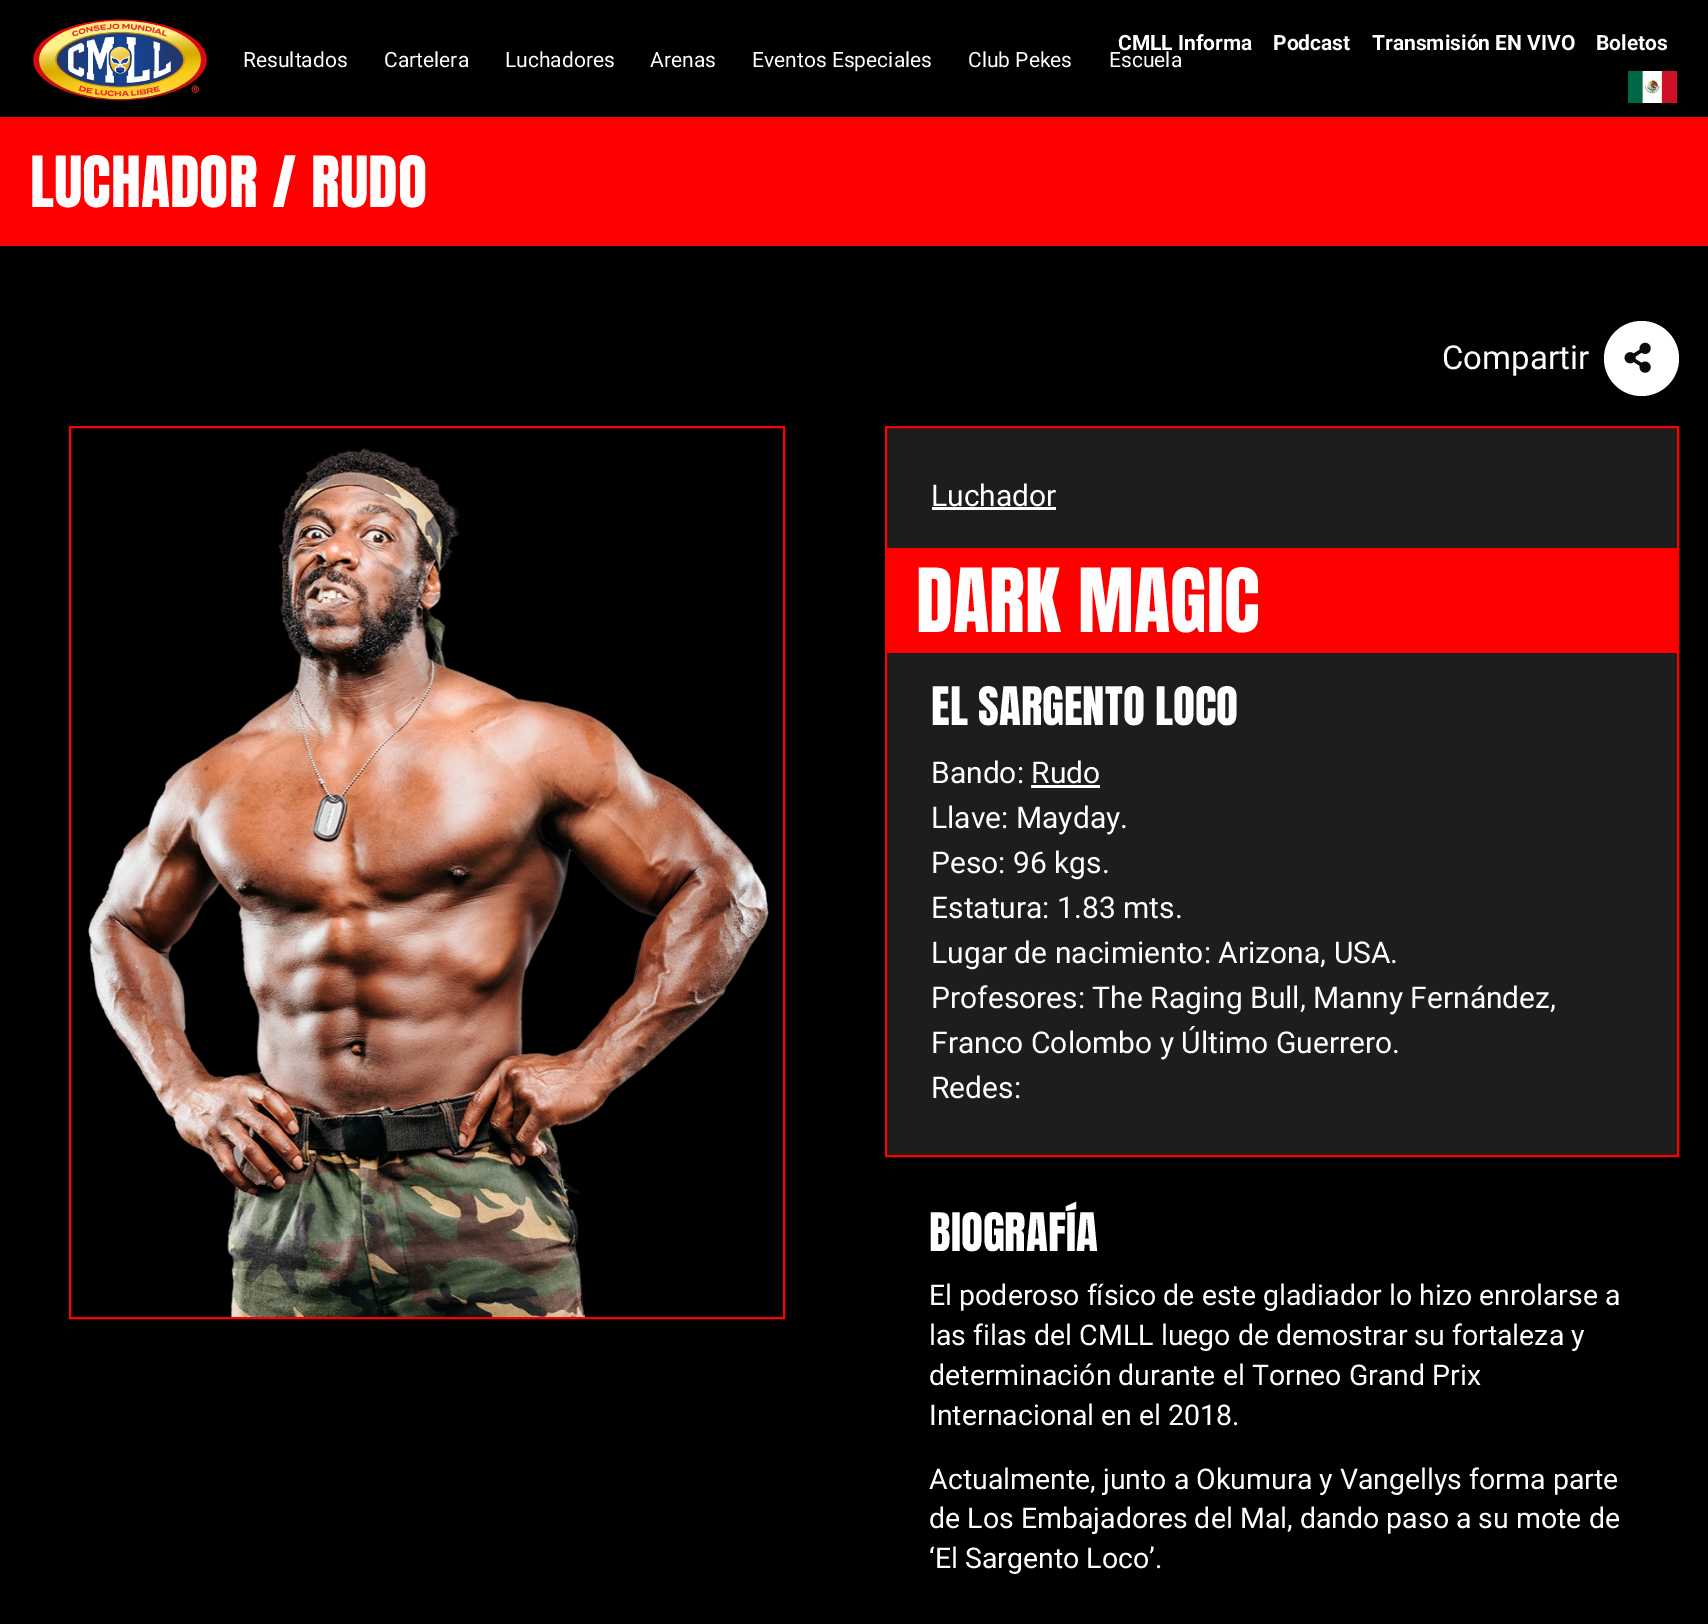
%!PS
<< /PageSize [1708 1624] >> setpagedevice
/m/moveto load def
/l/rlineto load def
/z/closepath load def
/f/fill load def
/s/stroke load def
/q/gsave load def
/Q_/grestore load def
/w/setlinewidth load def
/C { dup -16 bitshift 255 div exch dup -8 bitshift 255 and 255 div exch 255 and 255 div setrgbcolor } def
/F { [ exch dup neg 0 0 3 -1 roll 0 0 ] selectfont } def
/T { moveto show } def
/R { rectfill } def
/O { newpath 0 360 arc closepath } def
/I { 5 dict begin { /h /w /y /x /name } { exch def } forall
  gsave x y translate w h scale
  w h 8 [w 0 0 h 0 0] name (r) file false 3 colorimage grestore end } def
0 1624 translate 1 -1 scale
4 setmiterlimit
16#000000 C
0 0 1708 1624 R
/Roboto-Bold 21 F
16#FEFEFE C
(CMLL Informa) 1118 50 T
(Podcast) 1273 50 T
(Transmisión EN VIVO) 1372 50 T
(Boletos) 1596 50 T
(1.rgb) 1628 71 49 32 I
(2.rgb) 33 19 174 82 I
/Roboto-Regular 21 F
(Resultados) 243 67 T
(Cartelera) 384 67 T
(Luchadores) 505 67 T
(Arenas) 650 67 T
(Eventos Especiales) 752 67 T
(Club Pekes) 968 67 T
(Escuela) 1109 67 T
16#FF0000 C
0 117 1708 129 R
/Anton-Regular 60 F
16#FEFEFE C
(LUCHADOR) 30 207 T
(/) 272 207 T
(RUDO) 311 207 T
/Roboto-Regular 33 F
(Compartir) 1442 369 T
16#FFFFFF C
1641.5 358.5 37.5 O f
(3.rgb) 1624 342 27 31 I
16#FF0000 C
2 w
70 427 714 891 rectstroke
(4.rgb) 88 448 681 869 I
16#1D1D1D C
886 427 m 792 0 l 0 729 l -792 0 l z q f Q_
16#FF0000 C
s
/Roboto-Regular 30 F
16#FEFEFE C
(Luchador) 931 506 T
16#FFFFFF C
932 507 124 3 R
16#FF0000 C
887 548 790 105 R
/Anton-Regular 75 F
16#FEFEFE C
(DARK MAGIC) 916 632 T
/Anton-Regular 45 F
(EL SARGENTO LOCO) 931 725 T
/Roboto-Regular 30 F
(Bando: Rudo) 931 783 T
16#FFFFFF C
1031 785 69 3 R
16#FEFEFE C
(Llave: Mayday.) 931 828 T
(Peso: 96 kgs.) 931 873 T
(Estatura: 1.83 mts.) 931 918 T
(Lugar de nacimiento: Arizona, USA.) 931 963 T
(Profesores: The Raging Bull, Manny Fernández,) 931 1008 T
(Franco Colombo y Último Guerrero.) 931 1053 T
(Redes:) 931 1098 T
/Anton-Regular 45 F
(BIOGRAFÍA) 929 1251 T
/Roboto-Regular 28.5 F
(El poderoso físico de este gladiador lo hizo enrolarse a) 929 1305 T
(las filas del CMLL luego de demostrar su fortaleza y) 929 1345 T
(determinación durante el Torneo Grand Prix) 929 1385 T
(Internacional en el 2018.) 929 1425 T
(Actualmente, junto a Okumura y Vangellys forma parte) 929 1489 T
(de Los Embajadores del Mal, dando paso a su mote de) 929 1528 T
(‘El Sargento Loco’.) 929 1568 T
showpage
